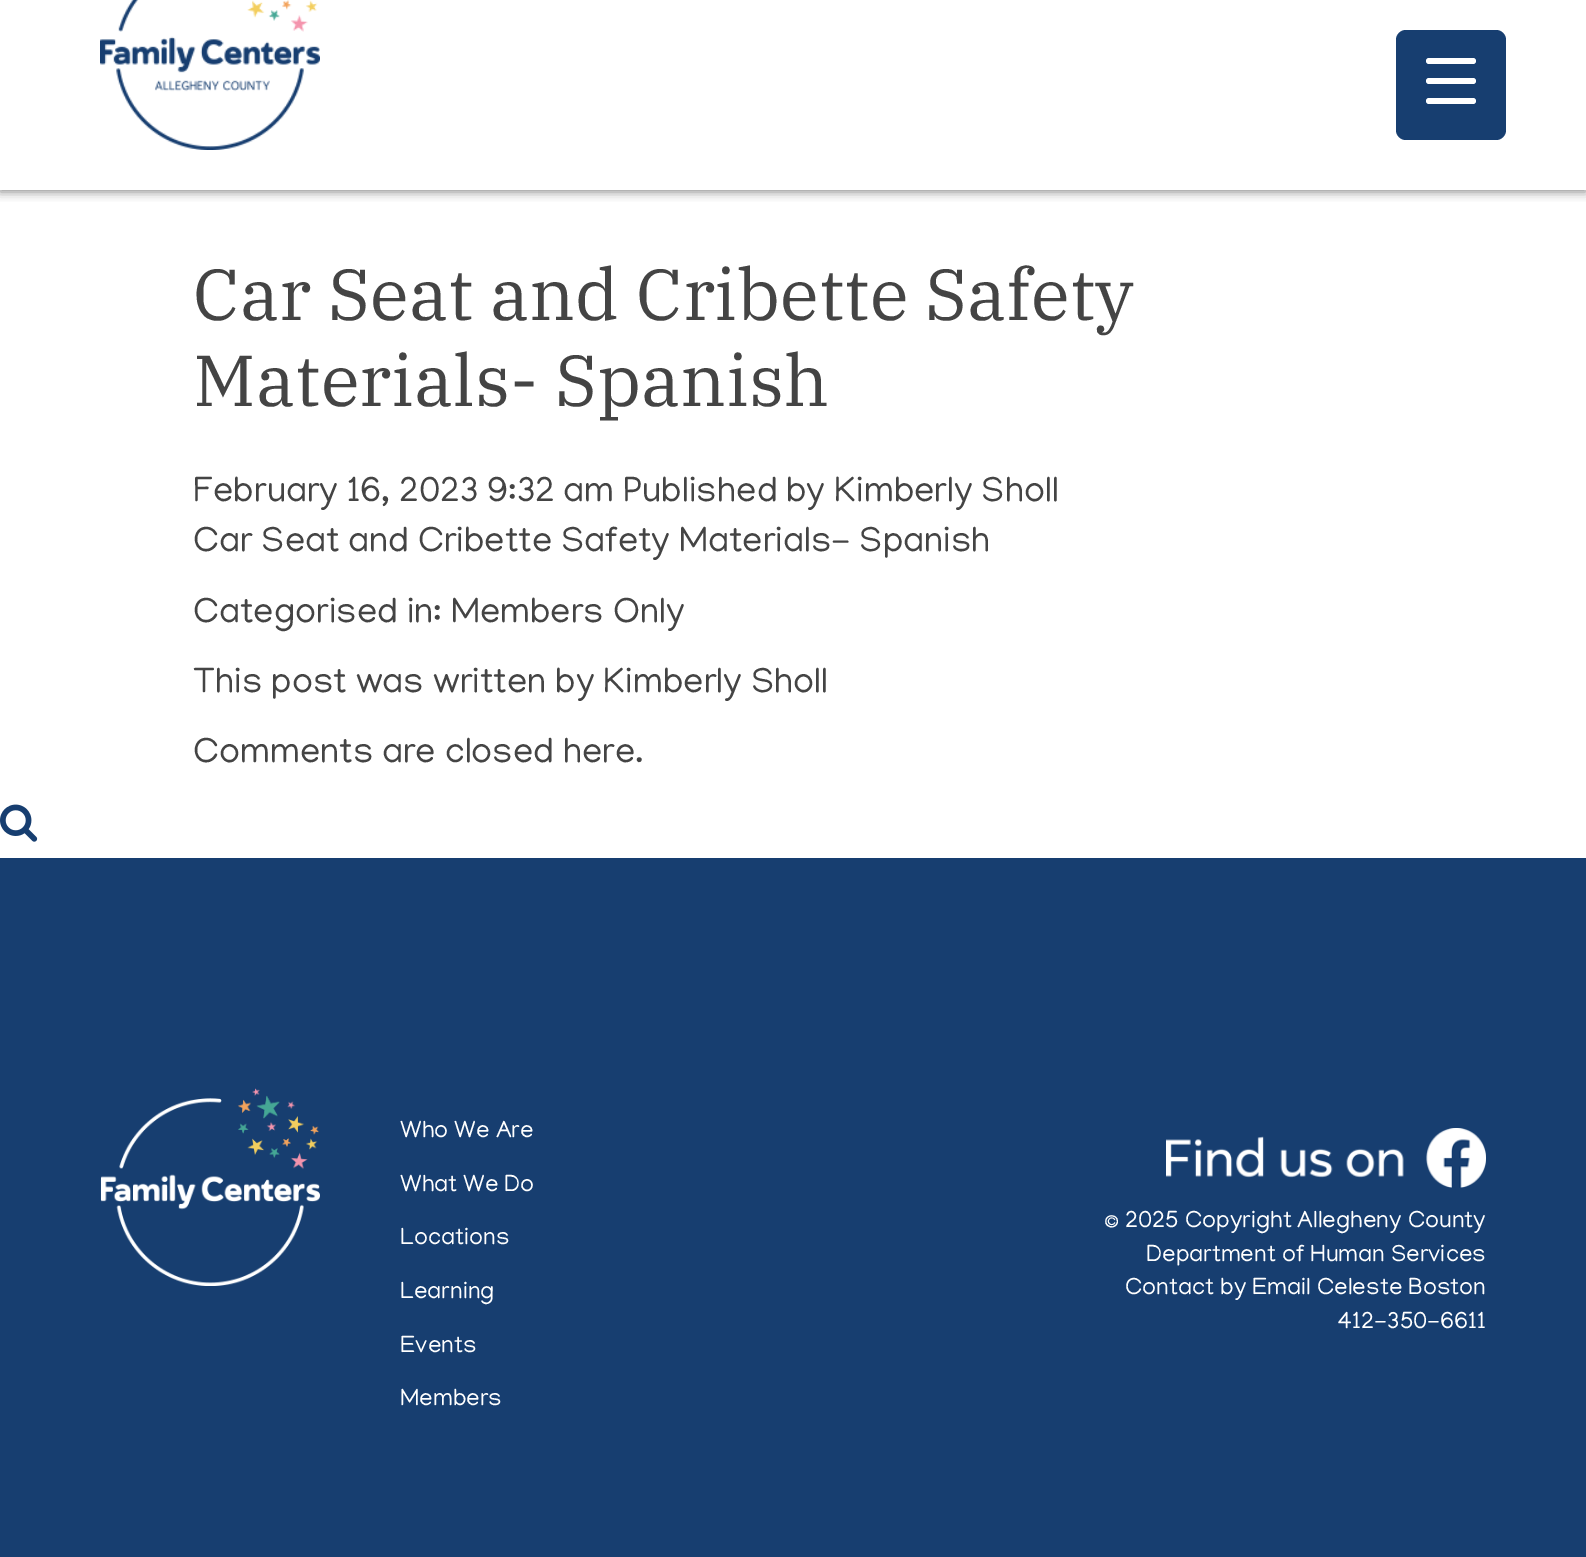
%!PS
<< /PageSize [1586 1557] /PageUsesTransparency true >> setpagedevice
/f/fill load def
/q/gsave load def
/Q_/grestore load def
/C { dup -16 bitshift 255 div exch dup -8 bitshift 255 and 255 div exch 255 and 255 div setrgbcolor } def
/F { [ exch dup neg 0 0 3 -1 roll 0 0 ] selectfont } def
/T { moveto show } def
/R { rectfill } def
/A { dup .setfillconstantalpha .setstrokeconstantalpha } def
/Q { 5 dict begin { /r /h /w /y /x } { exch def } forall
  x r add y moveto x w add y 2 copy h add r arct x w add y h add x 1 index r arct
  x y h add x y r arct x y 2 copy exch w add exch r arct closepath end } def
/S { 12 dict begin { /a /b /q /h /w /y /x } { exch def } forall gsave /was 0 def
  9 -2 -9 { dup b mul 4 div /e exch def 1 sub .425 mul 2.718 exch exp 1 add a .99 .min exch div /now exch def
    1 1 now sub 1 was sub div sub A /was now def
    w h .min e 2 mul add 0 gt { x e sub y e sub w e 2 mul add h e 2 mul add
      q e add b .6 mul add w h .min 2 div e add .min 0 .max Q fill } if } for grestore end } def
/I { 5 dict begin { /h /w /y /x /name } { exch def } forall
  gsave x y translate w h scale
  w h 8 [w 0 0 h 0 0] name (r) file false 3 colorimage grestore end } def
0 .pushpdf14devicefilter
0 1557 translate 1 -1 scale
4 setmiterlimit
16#FFFFFF C
0 0 1586 1557 R
q
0 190 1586 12 rectclip
16#888888 C
0 -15 1586 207 0 5 1 S
Q_
16#173E70 C
1396 30 110 110 10 Q f
16#FFFFFF C
1426 78 50 6 3 Q f
1426 58 50 6 3 Q f
1426 98 50 6 3 Q f
(1.rgb) 100 0 220 150 I
/IBMPlexSerif-Regular 72 F
16#444444 C
(Car Seat and Cribette Safety) 193 320 T
(Materials- Spanish) 193 406 T
/Manjari-Regular 36 F
(February 16, 2023 9:32 am Published by Kimberly Sholl) 193 501 T
(Car Seat and Cribette Safety Materials- Spanish) 193 551 T
(Categorised in: Members Only) 193 622 T
(This post was written by Kimberly Sholl) 193 692 T
(Comments are closed here.) 193 762 T
(2.rgb) 0 804 38 38 I
16#173E70 C
0 858 1586 699 R
(3.rgb) 100 1088 220 198 I
/Manjari-Regular 24 F
16#FFFFFF C
(Who We Are) 400 1137 T
(What We Do) 400 1191 T
(Locations) 400 1244 T
(Learning) 400 1298 T
(Events) 400 1352 T
(Members) 400 1405 T
(4.rgb) 1166 1128 320 60 I
(© 2025 Copyright Allegheny County) 1104 1227 T
(Department of Human Services) 1146 1261 T
(Contact by Email Celeste Boston) 1125 1294 T
(412-350-6611) 1337 1328 T
.poppdf14devicefilter showpage
